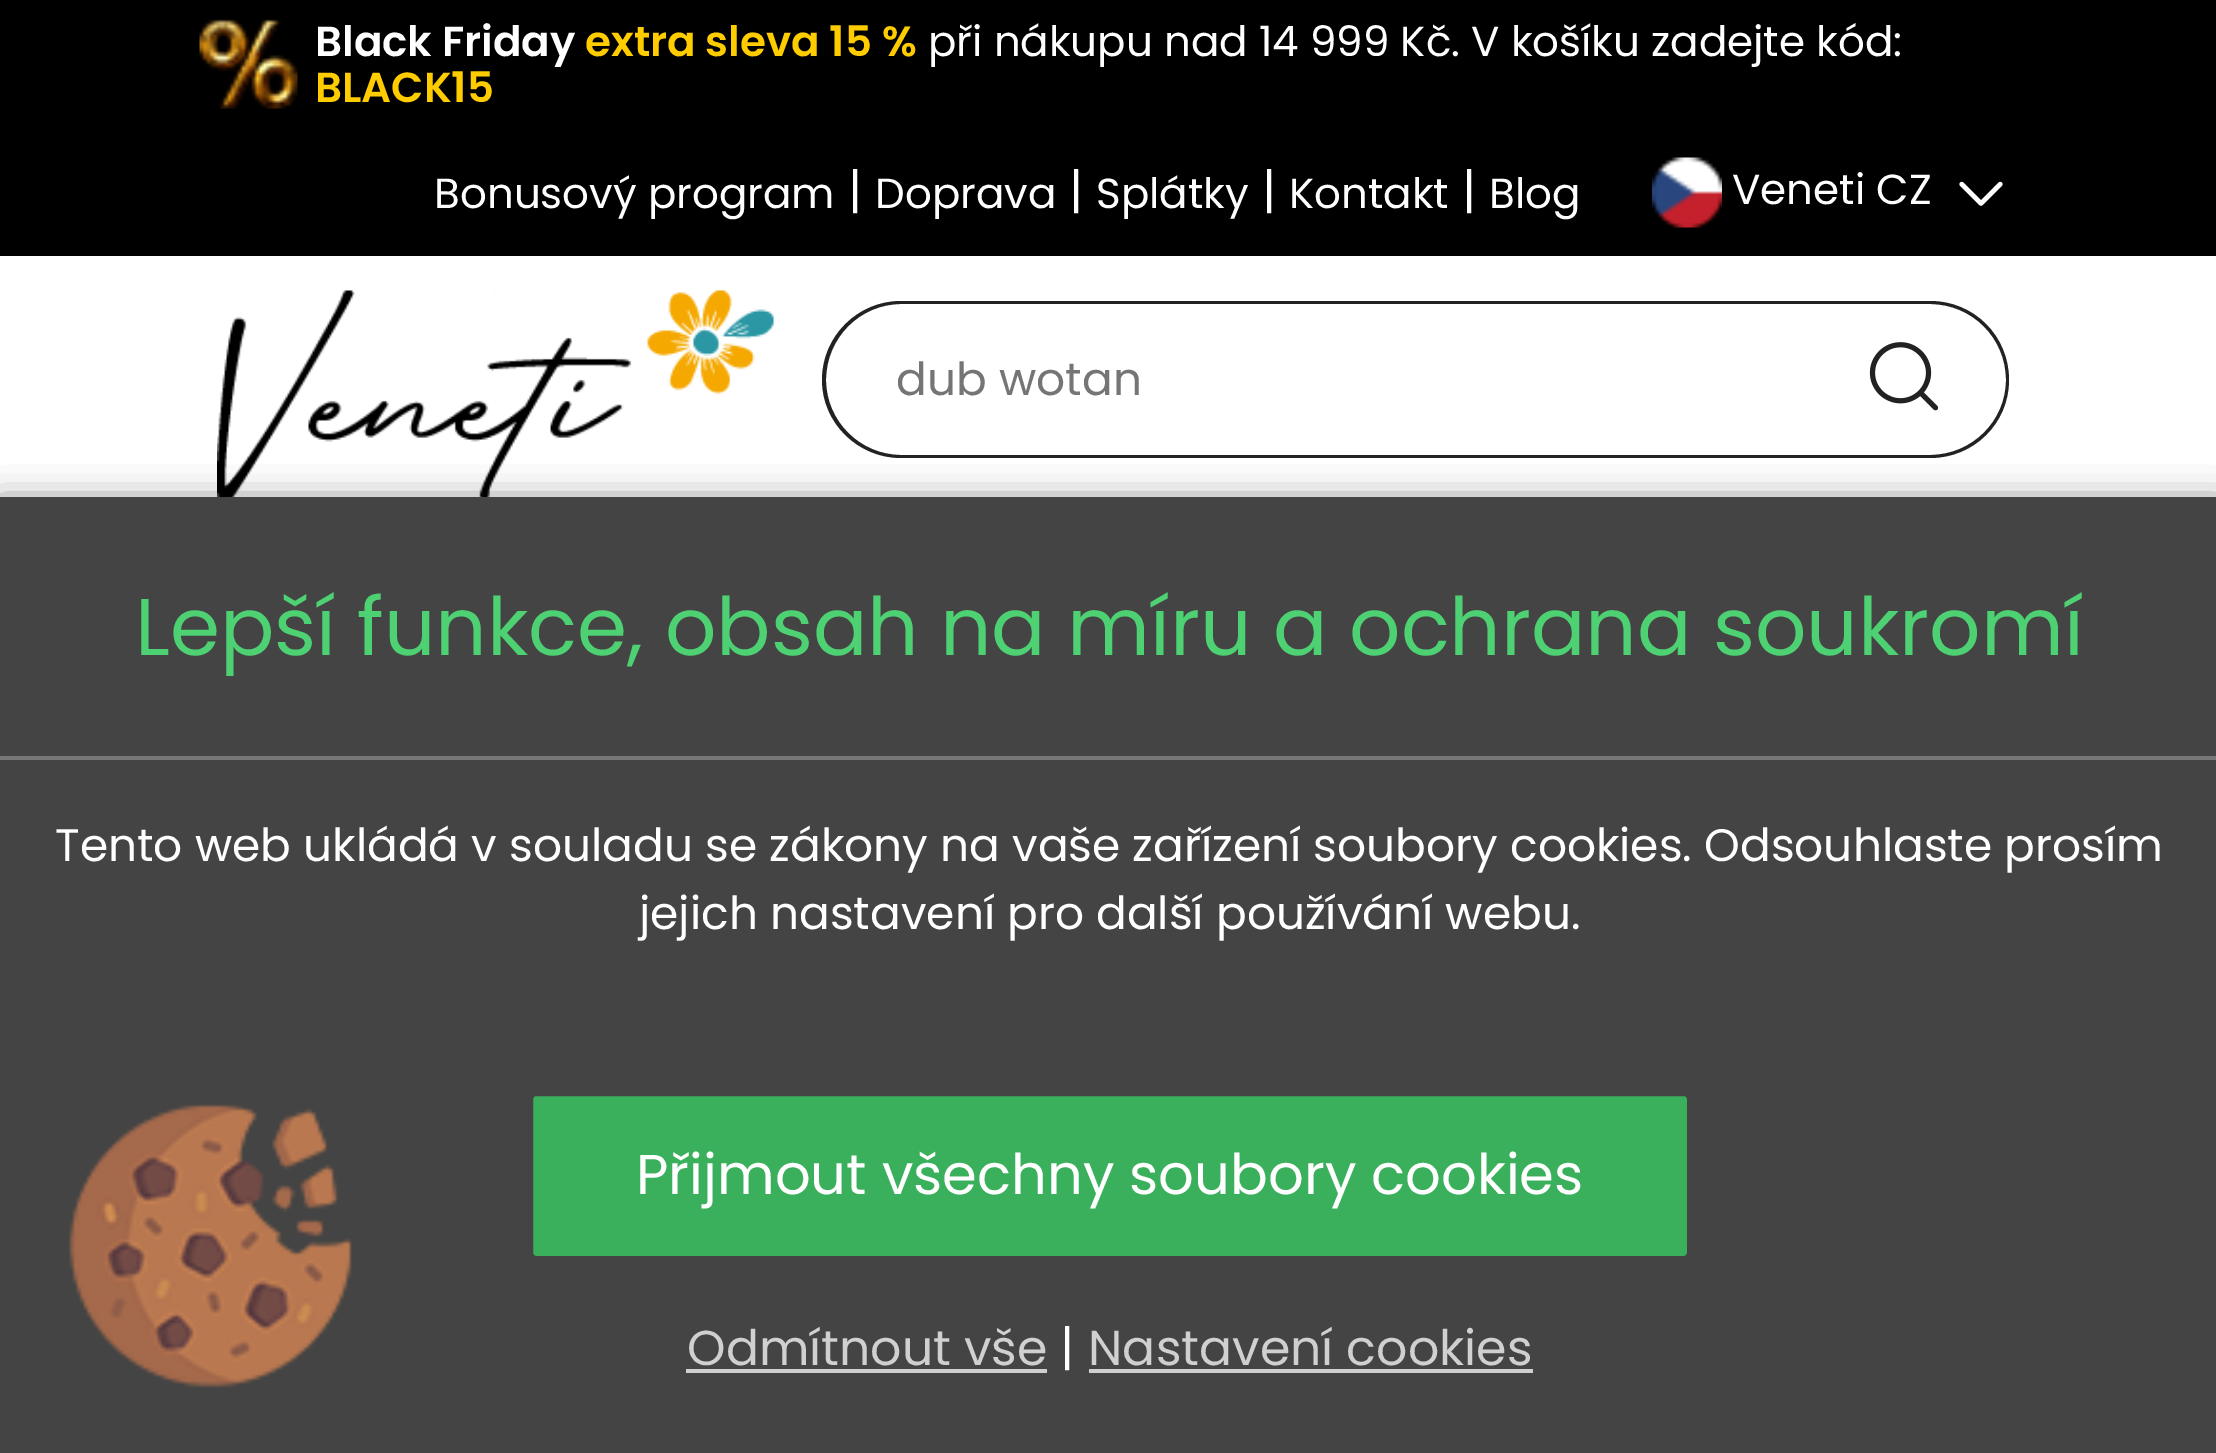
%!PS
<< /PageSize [2216 1453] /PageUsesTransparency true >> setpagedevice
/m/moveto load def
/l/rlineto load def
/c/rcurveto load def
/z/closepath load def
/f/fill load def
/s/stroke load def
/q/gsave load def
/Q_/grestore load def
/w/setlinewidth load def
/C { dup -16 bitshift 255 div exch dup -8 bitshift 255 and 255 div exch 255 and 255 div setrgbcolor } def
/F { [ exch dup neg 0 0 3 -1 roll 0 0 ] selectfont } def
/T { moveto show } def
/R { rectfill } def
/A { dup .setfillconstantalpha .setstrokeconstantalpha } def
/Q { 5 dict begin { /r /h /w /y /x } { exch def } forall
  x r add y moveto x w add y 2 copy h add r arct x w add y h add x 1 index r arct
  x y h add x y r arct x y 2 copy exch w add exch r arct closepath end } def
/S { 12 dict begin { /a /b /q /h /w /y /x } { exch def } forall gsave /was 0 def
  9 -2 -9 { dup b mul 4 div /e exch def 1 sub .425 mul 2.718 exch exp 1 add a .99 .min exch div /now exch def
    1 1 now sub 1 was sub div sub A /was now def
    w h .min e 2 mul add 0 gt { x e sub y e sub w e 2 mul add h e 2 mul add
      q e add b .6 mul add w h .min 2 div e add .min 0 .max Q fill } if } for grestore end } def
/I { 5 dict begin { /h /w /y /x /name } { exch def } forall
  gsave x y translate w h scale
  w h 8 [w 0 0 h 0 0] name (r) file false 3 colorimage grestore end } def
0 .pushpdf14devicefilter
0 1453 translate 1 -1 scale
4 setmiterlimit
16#FFFFFF C
0 0 2216 1453 R
16#000000 C
0 0 2216 256 R
(1.rgb) 199 19 99 90 I
/Poppins-SemiBold 42 F
16#FFFFFF C
(Black Friday) 315 56 T
16#FFCC00 C
(extra sleva 15 %) 585 56 T
/Poppins-Regular 42 F
16#FFFFFF C
(při nákupu nad 14 999 Kč. V košíku zadejte kód:) 928 56 T
/Poppins-SemiBold 42 F
16#FFCC00 C
(BLACK15) 315 102 T
/Poppins-Regular 42 F
16#FFFFFF C
(Bonusový program) 434 208 T
/Poppins-Regular 49 F
(|) 848 208 T
/Poppins-Regular 42 F
(Doprava) 875 208 T
/Poppins-Regular 49 F
(|) 1069 208 T
/Poppins-Regular 42 F
(Splátky) 1096 208 T
/Poppins-Regular 49 F
(|) 1262 208 T
/Poppins-Regular 42 F
(Kontakt) 1289 208 T
/Poppins-Regular 49 F
(|) 1462 208 T
/Poppins-Regular 42 F
(Blog) 1489 208 T
(2.rgb) 1652 157 70 71 I
(Veneti CZ) 1732 204 T
(3.rgb) 1959 181 44 25 I
(4.rgb) 217 290 557 207 I
16#222222 C
901 301 m 1022 0 l 44 0 79 35 79 79 c 0 43 -35 78 -79 78 c -1022 0 l -43 0 -79 -35 -79 -78 c 0 -44 36 -79 79 -79 c z 901 304 m 1022 0 l 44 0 79 34 79 76 c 0 41 -35 75 -79 75 c -1022 0 l -41 0 -75 -34 -75 -75 c 0 -42 34 -76 75 -76 c z eofill
/Poppins-Regular 45.5 F
16#757575 C
(dub wotan) 896 395 T
16#FFFFFF C
1799 301 m 131 0 l 43.5 0 79 35.5 79 79 c 0 43.5 -35.5 79 -79 79 c -131 0 l z f
16#222222 C
1799 301 m 131 0 l 44 0 79 35 79 79 c 0 43 -35 78 -79 78 c -131 0 l z 1799 304 m 131 0 l 42 0 76 34 76 76 c 0 41 -34 75 -76 75 c -131 0 l z eofill
(5.rgb) 1869 342 70 69 I
16#000000 C
0 504 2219 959 0 17.5 .6 S
16#444444 C
0 497 2216 956 R
16#787878 C
0 756 2216 4 R
/Poppins-Regular 80.5 F
16#4DD172 C
(Lepší funkce, obsah na míru a ochrana soukromí) 135 655 T
/Poppins-Regular 45.5 F
16#FFFFFF C
(Tento web ukládá v souladu se zákony na vaše zařízení soubory cookies. Odsouhlaste prosím) 55 861 T
(jejich nastavení pro další používání webu.) 639 929 T
(6.rgb) 69 1104 283 284 I
16#3BB05C C
531 1094 1158 164 5 Q q f Q_
16#444444 C
4 w
s
/Poppins-Regular 56 F
16#FFFFFF C
(Přijmout všechny soubory cookies) 636 1194 T
/Poppins-Regular 49 F
16#D0D0D0 C
(Odmítnout vše) 687 1365 T
686 1369 361 4 R
16#FFFFFF C
(|) 1060 1365 T
16#D0D0D0 C
(Nastavení cookies) 1088 1365 T
1089 1369 444 4 R
.poppdf14devicefilter showpage
